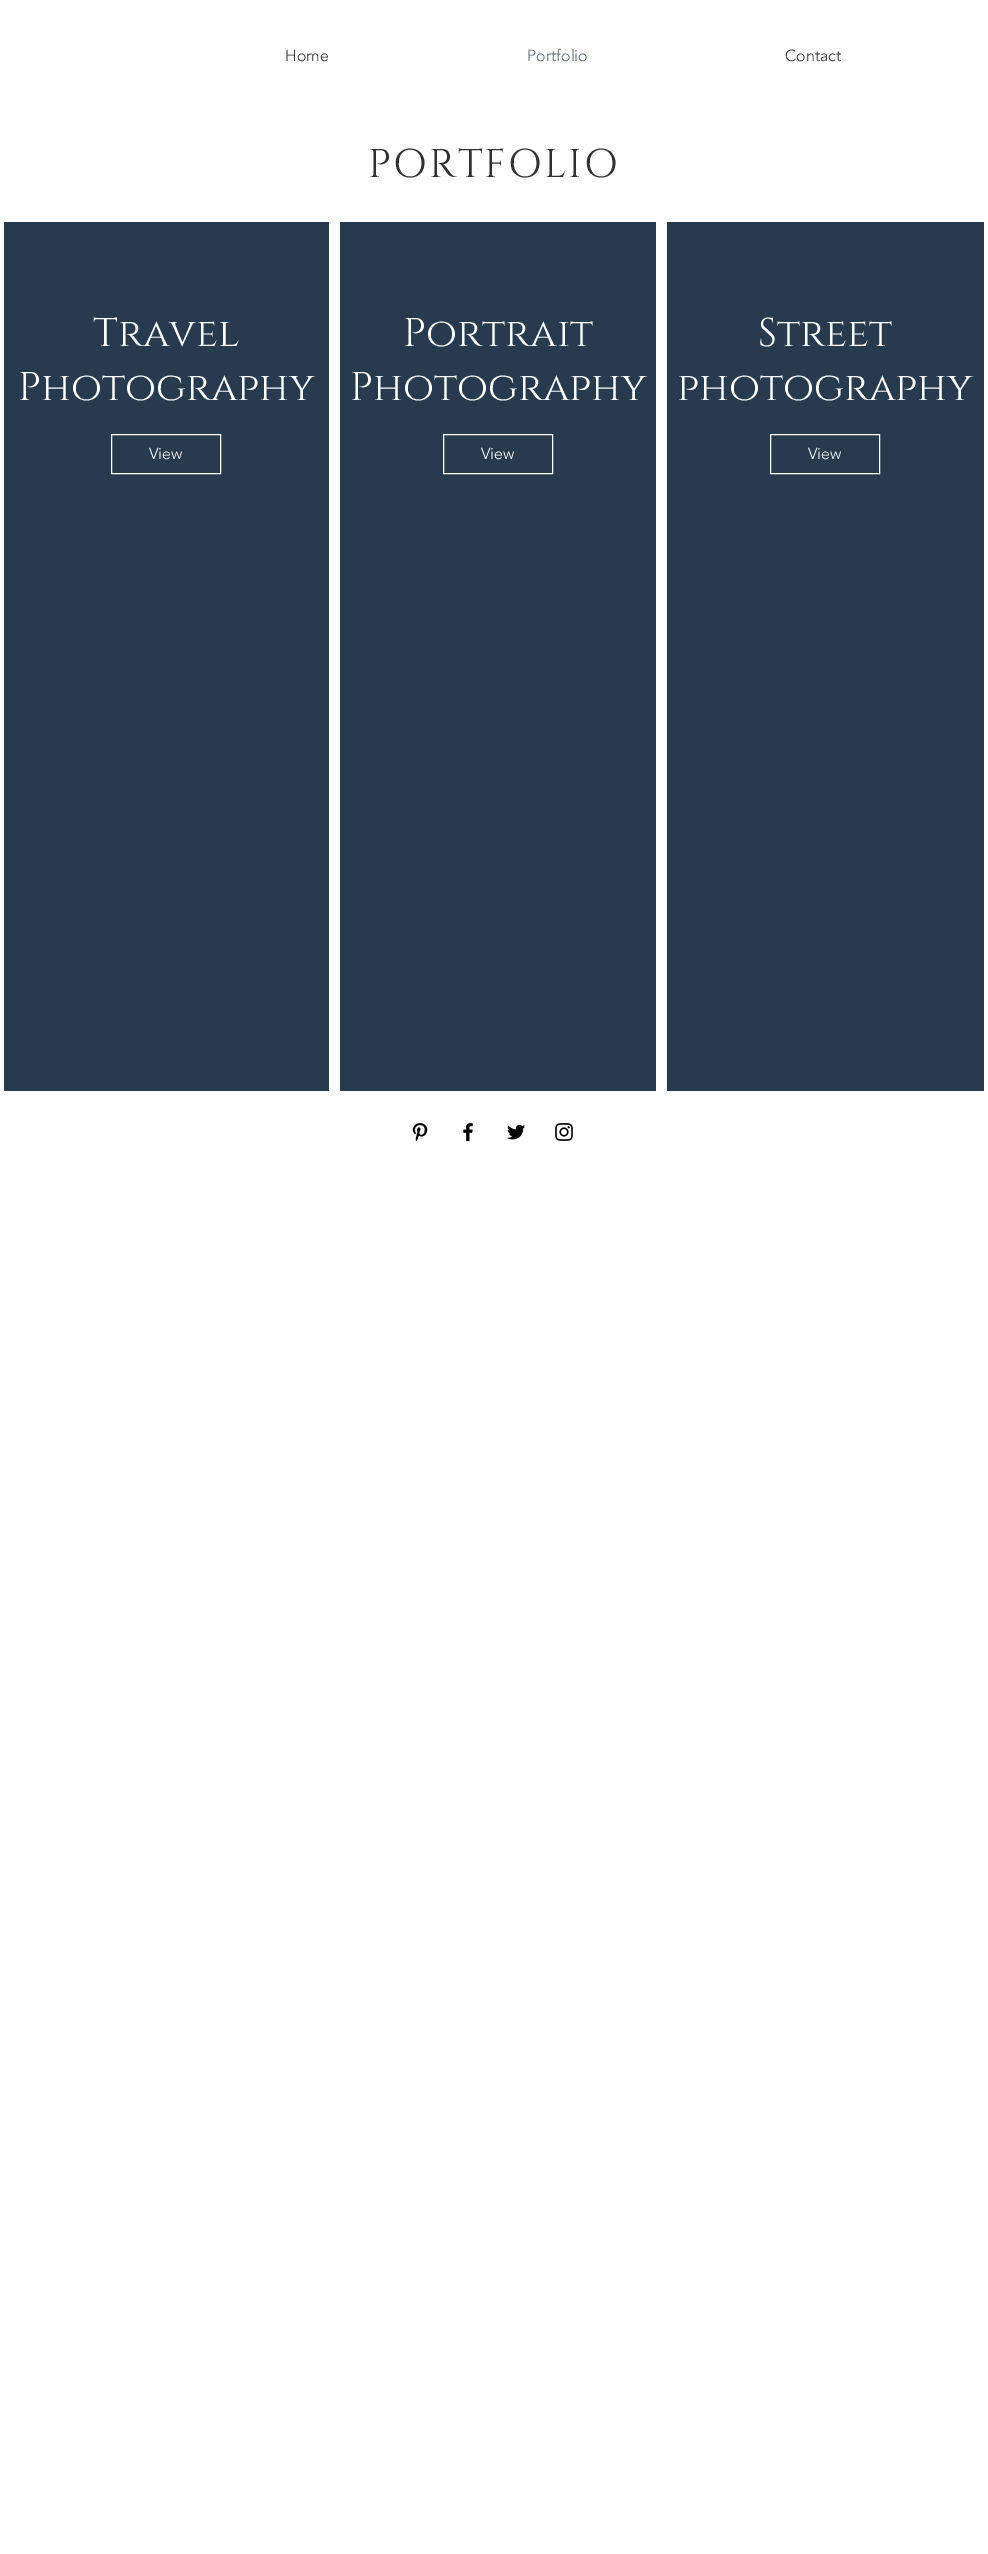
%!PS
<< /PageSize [988 2554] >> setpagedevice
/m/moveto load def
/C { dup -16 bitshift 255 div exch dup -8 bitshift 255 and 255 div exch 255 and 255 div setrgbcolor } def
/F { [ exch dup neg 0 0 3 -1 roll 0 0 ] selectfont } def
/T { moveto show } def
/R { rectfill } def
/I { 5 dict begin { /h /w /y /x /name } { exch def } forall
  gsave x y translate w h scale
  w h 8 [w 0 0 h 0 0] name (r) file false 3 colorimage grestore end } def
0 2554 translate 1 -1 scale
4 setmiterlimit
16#FFFFFF C
0 0 988 2554 R
/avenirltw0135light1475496-Light 16 F
16#303131 C
(Home) 285 61 T
16#5C6B7A C
(Portfolio) 527 61 T
16#303131 C
(Contact) 785 61 T
/Cinzel-Regular 40 F
368 177 m 2 0 (PORTFOLIO) ashow
16#273A4E C
4 222 325 869 R
16#FFFFFF C
(Travel) 93 346 T
(Photography) 18 400 T
111.5 434.5 109 39 rectstroke
/avenirltw0135light1475496-Light 16 F
(View) 149 459 T
16#273A4E C
340 222 316 869 R
/Cinzel-Regular 40 F
16#FFFFFF C
(Portrait) 403 346 T
(Photography) 350 400 T
443.5 434.5 109 39 rectstroke
/avenirltw0135light1475496-Light 16 F
(View) 481 459 T
16#273A4E C
667 222 317 869 R
/Cinzel-Regular 40 F
16#FFFFFF C
(Street) 758 346 T
(photography) 677 400 T
770.5 434.5 109 39 rectstroke
/avenirltw0135light1475496-Light 16 F
(View) 808 459 T
(1.rgb) 412 1122 16 19 I
(2.rgb) 463 1122 10 20 I
(3.rgb) 507 1124 18 16 I
(4.rgb) 555 1123 18 18 I
showpage
